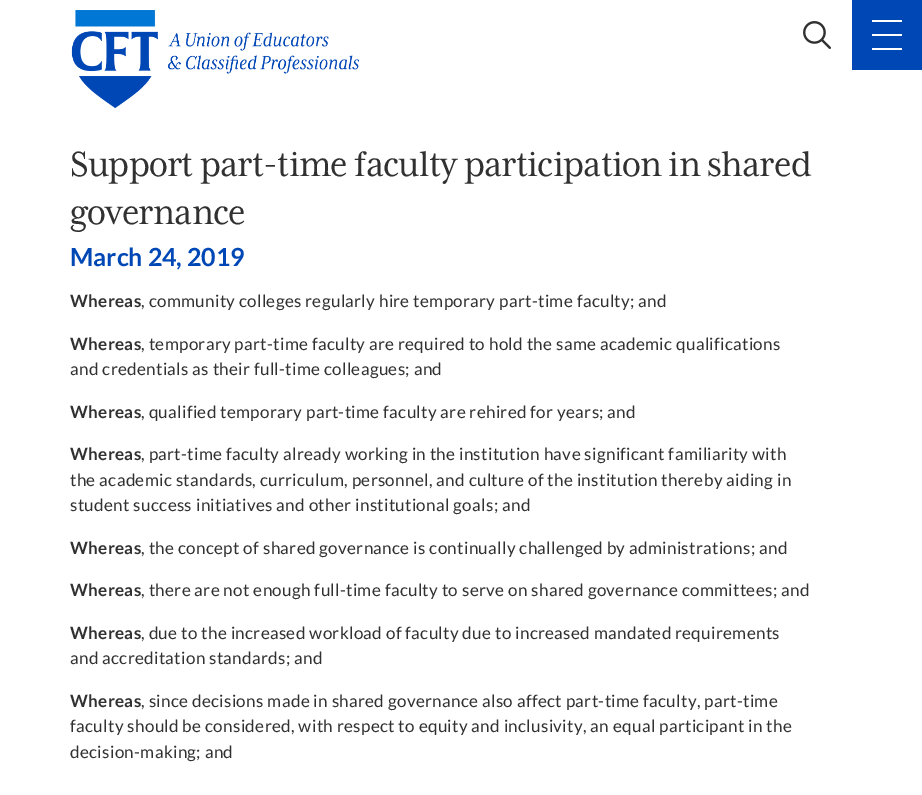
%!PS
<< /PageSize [922 795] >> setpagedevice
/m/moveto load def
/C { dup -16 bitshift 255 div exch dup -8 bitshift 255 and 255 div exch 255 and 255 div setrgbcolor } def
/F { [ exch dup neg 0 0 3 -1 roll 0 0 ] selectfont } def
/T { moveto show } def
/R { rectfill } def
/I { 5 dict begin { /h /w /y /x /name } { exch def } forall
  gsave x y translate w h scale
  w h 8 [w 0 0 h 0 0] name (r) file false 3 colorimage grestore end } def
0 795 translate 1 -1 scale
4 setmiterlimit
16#FFFFFF C
0 0 922 795 R
(1.rgb) 71 10 288 98 I
(2.rgb) 803 21 28 28 I
16#0047B6 C
852 0 70 70 R
16#FFFFFF C
872 20 30 2 R
872 34 30 2 R
872 48 30 2 R
/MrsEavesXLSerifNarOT-Regular 40 F
16#313131 C
70 176 m -.8 0 (Support part-time faculty participation in shared) ashow
70 224 m -.8 0 (governance) ashow
/Lato-Bold 25 F
16#0047B6 C
(March 24, 2019) 70 266 T
/Lato-Bold 17 F
16#313131 C
70 307 m .35 0 (Whereas) ashow
/Lato-Regular 17 F
141 307 m .35 0 (, community colleges regularly hire temporary part-time faculty; and) ashow
/Lato-Bold 17 F
70 350 m .35 0 (Whereas) ashow
/Lato-Regular 17 F
141 350 m .35 0 (, temporary part-time faculty are required to hold the same academic qualifications) ashow
70 375 m .35 0 (and credentials as their full-time colleagues; and) ashow
/Lato-Bold 17 F
70 418 m .35 0 (Whereas) ashow
/Lato-Regular 17 F
141 418 m .35 0 (, qualified temporary part-time faculty are rehired for years; and) ashow
/Lato-Bold 17 F
70 460 m .35 0 (Whereas) ashow
/Lato-Regular 17 F
141 460 m .35 0 (, part-time faculty already working in the institution have significant familiarity with) ashow
70 486 m .35 0 (the academic standards, curriculum, personnel, and culture of the institution thereby aiding in) ashow
70 511 m .35 0 (student success initiatives and other institutional goals; and) ashow
/Lato-Bold 17 F
70 554 m .35 0 (Whereas) ashow
/Lato-Regular 17 F
141 554 m .35 0 (, the concept of shared governance is continually challenged by administrations; and) ashow
/Lato-Bold 17 F
70 596 m .35 0 (Whereas) ashow
/Lato-Regular 17 F
141 596 m .35 0 (, there are not enough full-time faculty to serve on shared governance committees; and) ashow
/Lato-Bold 17 F
70 639 m .35 0 (Whereas) ashow
/Lato-Regular 17 F
141 639 m .35 0 (, due to the increased workload of faculty due to increased mandated requirements) ashow
70 664 m .35 0 (and accreditation standards; and) ashow
/Lato-Bold 17 F
70 707 m .35 0 (Whereas) ashow
/Lato-Regular 17 F
141 707 m .35 0 (, since decisions made in shared governance also affect part-time faculty, part-time) ashow
70 732 m .35 0 (faculty should be considered, with respect to equity and inclusivity, an equal participant in the) ashow
70 758 m .35 0 (decision-making; and) ashow
showpage
